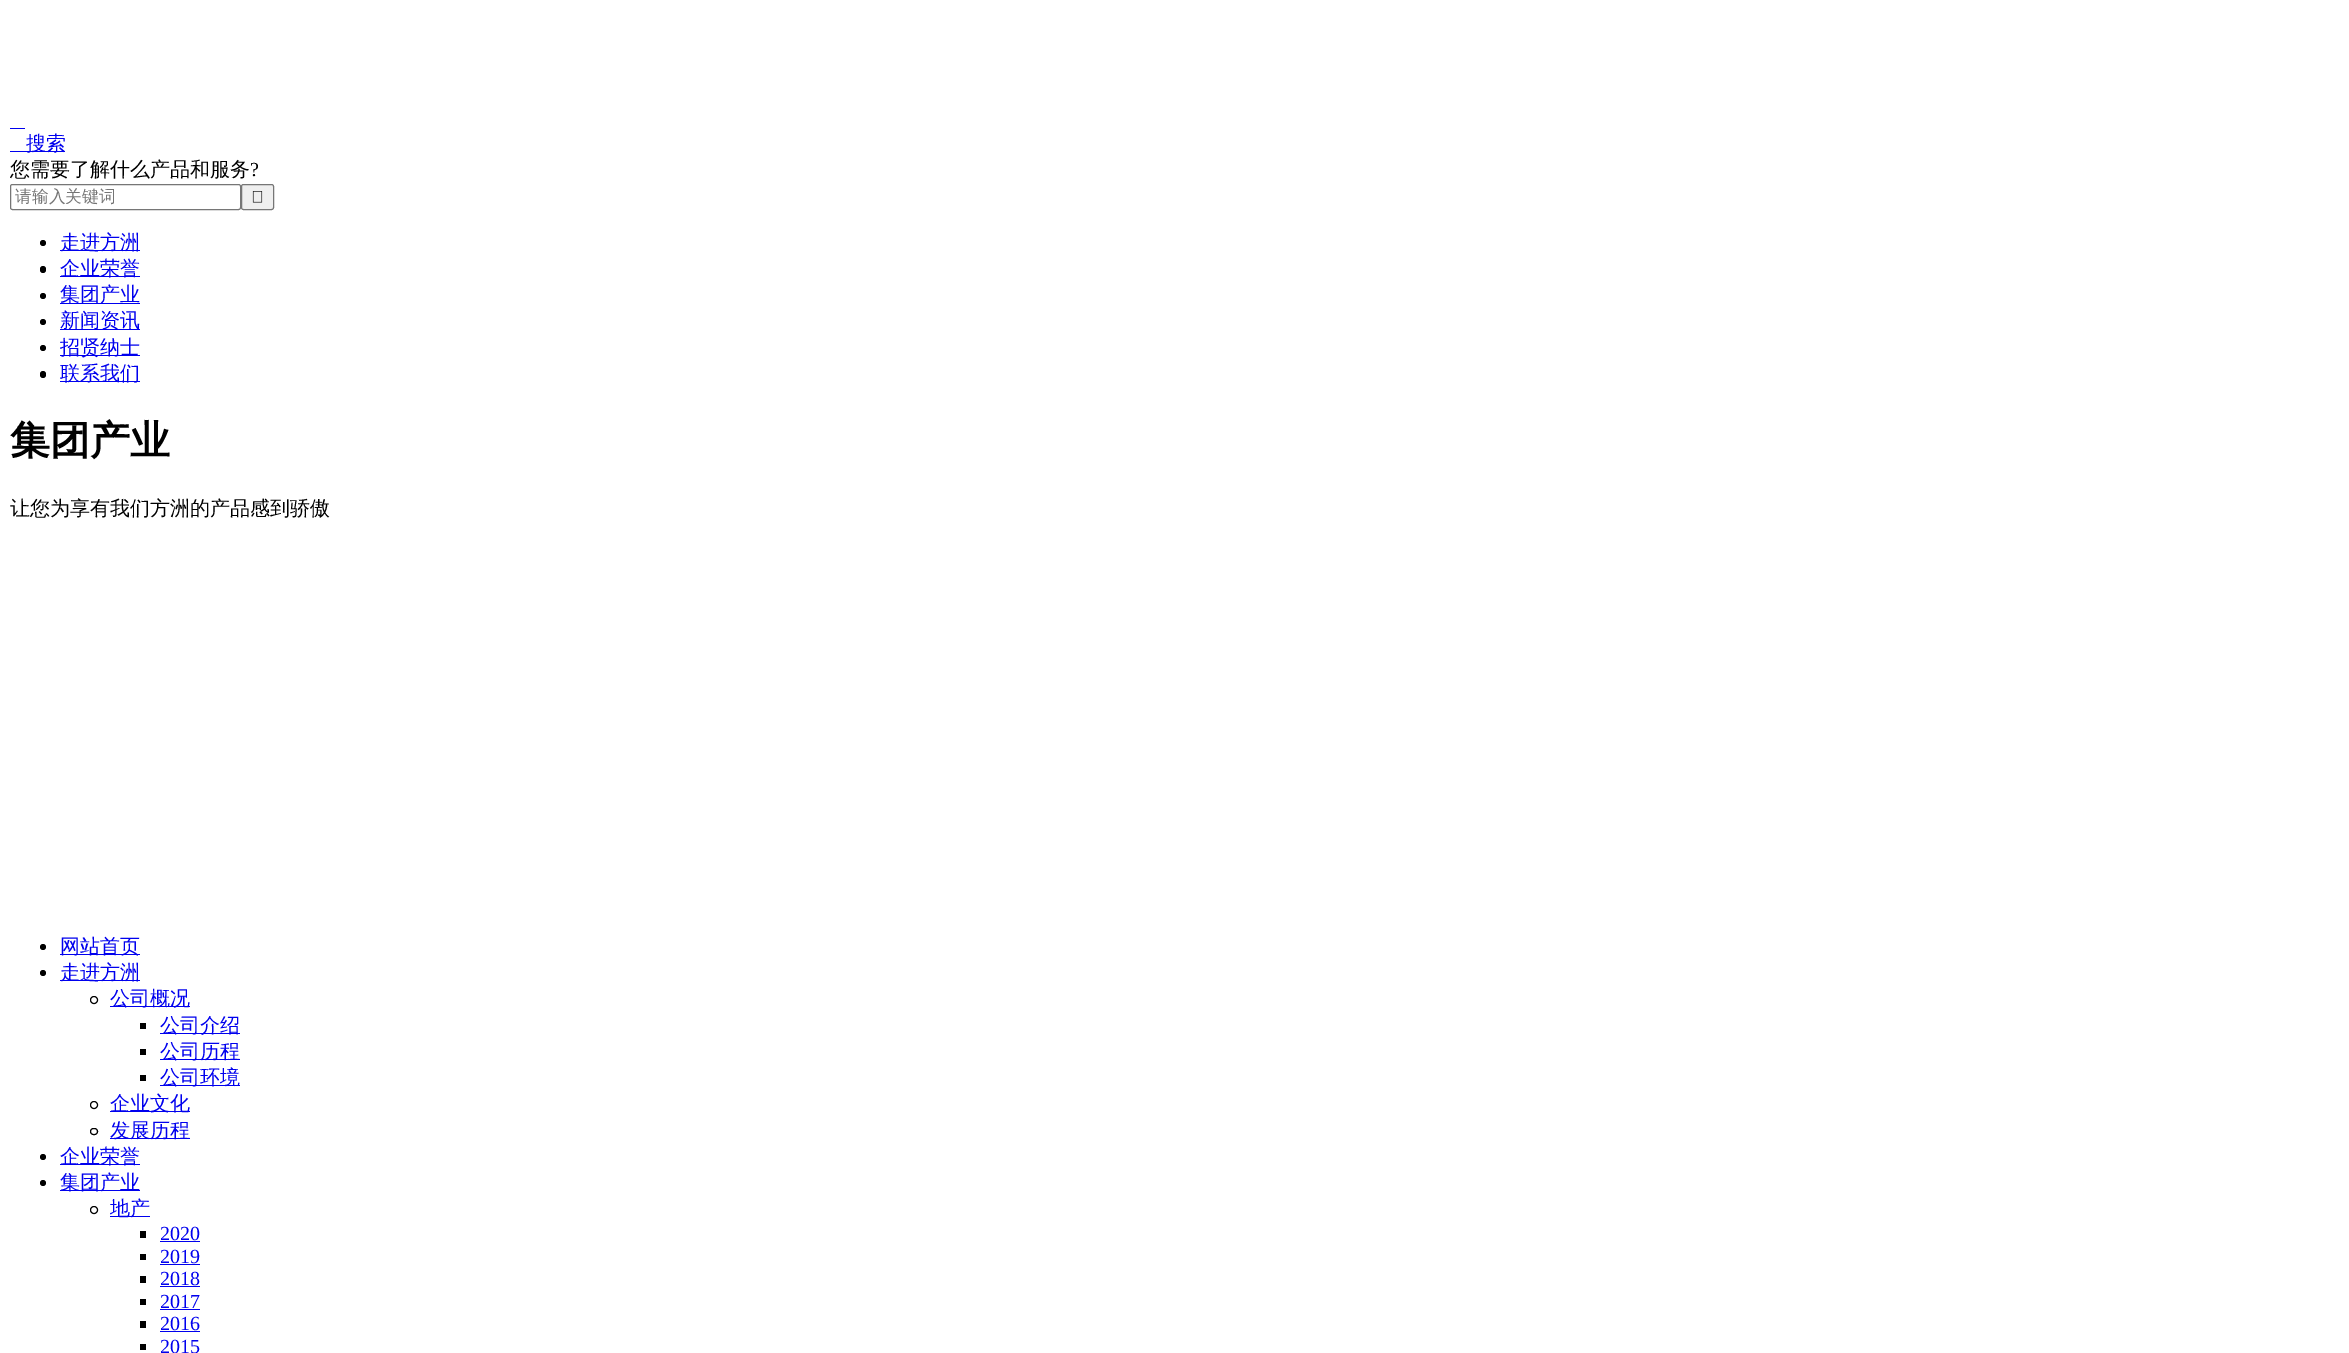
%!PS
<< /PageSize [2349 1353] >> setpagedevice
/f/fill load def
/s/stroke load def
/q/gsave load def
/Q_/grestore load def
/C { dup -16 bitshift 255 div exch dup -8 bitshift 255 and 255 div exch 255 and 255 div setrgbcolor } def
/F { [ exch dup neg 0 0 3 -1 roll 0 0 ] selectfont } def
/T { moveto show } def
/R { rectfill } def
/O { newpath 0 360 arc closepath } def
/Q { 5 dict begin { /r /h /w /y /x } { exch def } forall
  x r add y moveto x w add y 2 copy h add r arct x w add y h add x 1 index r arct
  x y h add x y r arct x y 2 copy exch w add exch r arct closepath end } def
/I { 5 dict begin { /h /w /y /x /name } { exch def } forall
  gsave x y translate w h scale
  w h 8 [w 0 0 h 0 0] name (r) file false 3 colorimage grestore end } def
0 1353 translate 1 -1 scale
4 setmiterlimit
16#FFFFFF C
0 0 2349 1353 R
16#0000EE C
10 128 15 1 R
10 151 55 1 R
/WenQuanYiZenHei-Medium 20 F
(搜索) 26 150 T
16#000000 C
(您需要了解什么产品和服务) 10 176 T
/LiberationSerif-Regular 20 F
(?) 250 176 T
16#767676 C
10.5 184.5 230 25 2 Q s
/WenQuanYiZenHei-Medium 16.75 F
16#757575 C
(请输入关键词) 15 202 T
16#EFEFEF C
241.5 184.5 32 25 2 Q q f Q_
16#767676 C
s
(1.rgb) 252 191 11 12 I
16#000000 C
43 243 3 O f
16#0000EE C
60 250 80 1 R
/WenQuanYiZenHei-Medium 20 F
(走进方洲) 60 249 T
16#000000 C
40 266 6 7 3 Q f
16#0000EE C
60 276 80 1 R
(企业荣誉) 60 275 T
16#000000 C
43 296 3 O f
16#0000EE C
60 303 80 1 R
(集团产业) 60 301 T
16#000000 C
43 322 3 O f
16#0000EE C
60 329 80 1 R
(新闻资讯) 60 327 T
16#000000 C
43 348 3 O f
16#0000EE C
60 355 80 1 R
(招贤纳士) 60 354 T
16#000000 C
40 371 6 7 3 Q f
16#0000EE C
60 381 80 1 R
(联系我们) 60 380 T
/WenQuanYiZenHei-Bold 40 F
16#000000 C
(集团产业) 10 454 T
/WenQuanYiZenHei-Medium 20 F
(让您为享有我们方洲的产品感到骄傲) 10 515 T
43 947 3 O f
16#0000EE C
60 954 80 1 R
(网站首页) 60 953 T
16#000000 C
43 973 3 O f
16#0000EE C
60 980 80 1 R
(走进方洲) 60 979 T
16#000000 C
94 1000 3.5 O s
16#0000EE C
110 1006 80 1 R
(公司概况) 110 1005 T
16#000000 C
140 1023 6 6 R
16#0000EE C
160 1033 80 1 R
(公司介绍) 160 1032 T
16#000000 C
140 1049 6 6 R
16#0000EE C
160 1059 80 1 R
(公司历程) 160 1058 T
16#000000 C
140 1075 6 6 R
16#0000EE C
160 1085 80 1 R
(公司环境) 160 1084 T
16#000000 C
94 1105 3.5 O s
16#0000EE C
110 1111 80 1 R
(企业文化) 110 1110 T
16#000000 C
90.5 1128.5 7 6 3 Q s
16#0000EE C
110 1138 80 1 R
(发展历程) 110 1137 T
16#000000 C
43 1157 3 O f
16#0000EE C
60 1164 80 1 R
(企业荣誉) 60 1163 T
16#000000 C
43 1183 3 O f
16#0000EE C
60 1190 80 1 R
(集团产业) 60 1189 T
16#000000 C
94 1210 3.5 O s
16#0000EE C
110 1216 40 1 R
(地产) 110 1215 T
16#000000 C
140 1231 6 7 R
/LiberationSerif-Regular 20 F
16#0000EE C
(2020) 160 1240 T
160 1241 40 1 R
16#000000 C
140 1254 6 6 R
16#0000EE C
(2019) 160 1263 T
160 1264 40 1 R
16#000000 C
140 1276 6 7 R
16#0000EE C
(2018) 160 1285 T
160 1286 40 1 R
16#000000 C
140 1299 6 6 R
16#0000EE C
(2017) 160 1308 T
160 1309 40 1 R
16#000000 C
140 1321 6 7 R
16#0000EE C
(2016) 160 1330 T
160 1331 40 1 R
16#000000 C
140 1344 6 6 R
16#0000EE C
(2015) 160 1353 T
showpage
